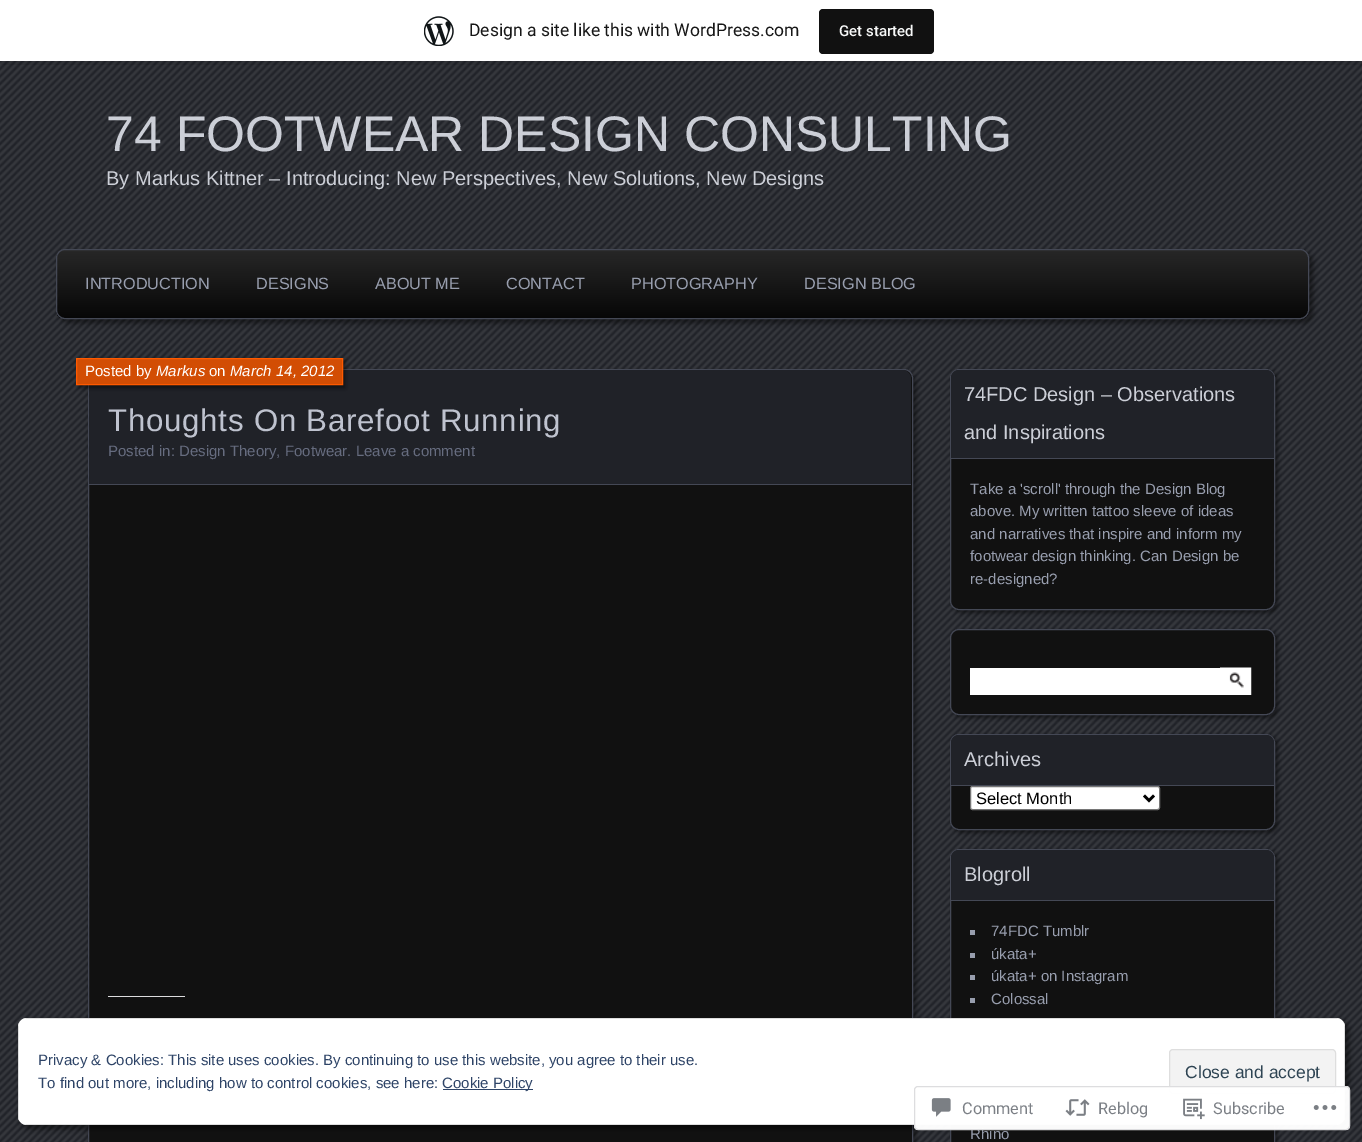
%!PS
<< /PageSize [1362 1142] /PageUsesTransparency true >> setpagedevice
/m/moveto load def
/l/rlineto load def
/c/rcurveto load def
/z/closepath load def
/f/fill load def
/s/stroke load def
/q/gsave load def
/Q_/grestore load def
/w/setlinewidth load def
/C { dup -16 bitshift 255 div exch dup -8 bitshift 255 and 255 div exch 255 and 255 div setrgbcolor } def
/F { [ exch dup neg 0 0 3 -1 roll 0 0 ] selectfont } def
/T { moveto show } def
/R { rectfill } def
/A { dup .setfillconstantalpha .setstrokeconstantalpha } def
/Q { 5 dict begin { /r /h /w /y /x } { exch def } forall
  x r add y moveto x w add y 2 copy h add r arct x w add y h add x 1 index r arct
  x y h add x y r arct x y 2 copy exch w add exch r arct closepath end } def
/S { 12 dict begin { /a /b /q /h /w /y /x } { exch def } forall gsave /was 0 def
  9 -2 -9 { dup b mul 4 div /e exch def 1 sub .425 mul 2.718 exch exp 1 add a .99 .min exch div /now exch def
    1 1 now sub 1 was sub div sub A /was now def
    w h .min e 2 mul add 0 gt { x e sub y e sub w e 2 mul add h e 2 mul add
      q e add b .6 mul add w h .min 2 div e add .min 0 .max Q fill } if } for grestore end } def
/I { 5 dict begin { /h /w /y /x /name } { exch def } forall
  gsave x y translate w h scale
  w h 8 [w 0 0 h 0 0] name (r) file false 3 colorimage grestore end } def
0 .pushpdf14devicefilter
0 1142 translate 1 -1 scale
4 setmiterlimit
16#202228 C
0 0 1362 1142 R
(1.rgb) 0 61 1362 1081 I
0.08 A
16#000000 C
1 61 m 0 4 l 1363 0 l 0 -61 l -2 0 l 0 57 l z f
1 A
16#FFFFFF C
0 0 1362 61 R
(2.rgb) 424 16 30 30 I
/Roboto-Regular 17.5 F
16#171717 C
(Design a site like this with WordPress.com) 469 36 T
16#111111 C
819 9 115 45 4 Q f
/Roboto-Medium 15 F
16#F6F7F7 C
(Get started) 839 36 T
/LiberationSans-Regular 50 F
16#CCCFD7 C
(74 FOOTWEAR DESIGN CONSULTING) 106 151 T
/LiberationSans-Regular 20 F
(By Markus Kittner – Introducing: New Perspectives, New Solutions, New Designs) 106 185 T
16#000000 C
60 253 1253 70 9 2.5 .45 S
q
56 249 1253 70 9 Q clip newpath
q 56 250 m 1253 0 l 0 68 l -1253 0 l z clip newpath
<< /ShadingType 2 /ColorSpace /DeviceRGB /Coords [683 250 683 318] /Extend [true true] /Function << /FunctionType 3 /Domain [0 1] /Functions [<< /FunctionType 2 /Domain [0 1] /C0 [.153 .153 .153] /C1 [.153 .153 .153] /N 1 >> << /FunctionType 2 /Domain [0 1] /C0 [.153 .153 .153] /C1 [.027 .027 .027] /N 1 >>] /Bounds [.01] /Encode [0 1 0 1] >> >> shfill Q_
Q_
16#444855 C
56.5 249.5 1252 69 8.5 Q s
/LiberationSans-Regular 16.25 F
16#989EAE C
(INTRODUCTION) 85 289 T
(DESIGNS) 256 289 T
(ABOUT ME) 375 289 T
(CONTACT) 506 289 T
(PHOTOGRAPHY) 631 289 T
(DESIGN BLOG) 804 289 T
16#000000 C
91 373 825 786 9 2.5 .45 S
16#111111 C
88.5 369.5 824 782 8.5 Q q f Q_
16#444855 C
s
16#202228 C
98 370 m 804 0 l 5 0 9 4 9 9 c 0 106 l -822 0 l 0 -106 l 0 -5 4 -9 9 -9 c z f
16#444855 C
89 484 822 1 R
16#000000 C
79 360 266 28 0 2 .45 S
16#D24D04 C
76.5 358.5 m 266 0 l 0 26 l -266 0 l z q f Q_
16#FF5A00 C
s
/LiberationSans-Regular 15 F
16#FFFFFF C
(Posted by) 85 376 T
/LiberationSans-Italic 15 F
(Markus) 156 376 T
/LiberationSans-Regular 15 F
(on) 209 376 T
/LiberationSans-Italic 15 F
(March 14, 2012) 230 376 T
/LiberationSans-Regular 31.25 F
16#BFC3CF C
108 431 m .75 0 (Thoughts On Barefoot Running) ashow
/LiberationSans-Regular 15 F
16#666C7F C
(Posted in: Design Theory, Footwear. Leave a comment) 108 456 T
16#DCDCDE C
108 996 77 1 R
16#000000 C
953 371 325 242 9 2 .45 S
16#111111 C
950.5 369.5 324 240 8.5 Q q f Q_
16#444855 C
s
16#202228 C
959 370 m 307 0 l 4.5 0 8 3.5 8 8 c 0 81 l -323 0 l 0 -81 l 0 -4.5 3.5 -8 8 -8 c z f
16#444855 C
951 458 323 1 R
/LiberationSans-Regular 20 F
16#CCCFD7 C
(74FDC Design – Observations) 964 401 T
(and Inspirations) 964 439 T
/LiberationSans-Regular 15 F
16#989EAE C
(Take a 'scroll' through the Design Blog) 970 494 T
(above. My written tattoo sleeve of ideas) 970 516 T
(and narratives that inspire and inform my) 970 539 T
(footwear design thinking. Can Design be) 970 561 T
(re-designed?) 970 584 T
16#000000 C
953 631 325 87 9 2 .45 S
16#111111 C
950.5 629.5 324 85 8.5 Q q f Q_
16#444855 C
s
16#FFFFFF C
970 668 250 27 R
(3.rgb) 1220 667 32 28 I
16#000000 C
953 736 325 97 9 2 .45 S
16#111111 C
950.5 734.5 324 95 8.5 Q q f Q_
16#444855 C
s
16#202228 C
959 735 m 307 0 l 4.5 0 8 3.5 8 8 c 0 43 l -323 0 l 0 -43 l 0 -4.5 3.5 -8 8 -8 c z f
16#444855 C
951 785 323 1 R
/LiberationSans-Regular 20 F
16#CCCFD7 C
(Archives) 964 766 T
16#FFFFFF C
970.5 786.5 189 23 2 Q q f Q_
16#767676 C
s
16#000000 C
2.5 w
1144 795.5 m 5 5 l 5 -5 l s
/LiberationSans-Regular 16.5 F
(Select Month) 976 804 T
953 851 325 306 9 2 .45 S
16#111111 C
950.5 849.5 324 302 8.5 Q q f Q_
16#444855 C
1 w
s
16#202228 C
959 850 m 307 0 l 4.5 0 8 3.5 8 8 c 0 43 l -323 0 l 0 -43 l 0 -4.5 3.5 -8 8 -8 c z f
16#444855 C
951 900 323 1 R
/LiberationSans-Regular 20 F
16#CCCFD7 C
(Blogroll) 964 881 T
16#989EAE C
970 930 5 5 R
/LiberationSans-Regular 15 F
(74FDC Tumblr) 991 936 T
970 953 5 5 R
(úkata+) 991 959 T
970 975 5 5 R
(úkata+ on Instagram) 991 981 T
970 998 5 5 R
(Colossal) 991 1004 T
(Rhino) 970 1139 T
16#000000 C
21 1021 1328 108 9 2.5 .45 S
16#FFFFFF C
18 1018 1327 107 9 Q f
16#DEDEDE C
18 1027 m 0 89 l 0 1 0 3 1 4 c 0 -97 l z 27 1018 m -4 1 l 1317 0 l -4 -1 l z 1345 1027 m -1 -4 l 0 97 l 1 -1 1 -3 1 -4 c z 1336 1125 m 4 -1 l -1317 0 l 4 1 l z eofill
16#2E4467 C
(Privacy & Cookies: This site uses cookies. By continuing to use this website, you agree to their use.) 38 1065 T
16#F3F3F3 C
1169.5 1049.5 166 44 3.5 Q q f Q_
16#DEDEDE C
s
/LiberationSans-Regular 17.5 F
16#2E4453 C
(Close and accept) 1185 1078 T
/LiberationSans-Regular 15 F
16#2E4467 C
(To find out more, including how to control cookies, see here:) 38 1088 T
443 1089 90 1 R
(Cookie Policy) 442 1088 T
0.98 A
16#FFFFFF C
914 1086 436 44 4 Q f
16#DCDCDE C
914.5 1086.5 435 43 3.5 Q s
1 A
(4.rgb) 931 1098 20 19 I
/Roboto-Regular 16.25 F
16#7B7F85 C
(Comment) 962 1114 T
(5.rgb) 1065 1099 25 17 I
(Reblog) 1098 1114 T
(6.rgb) 1183 1098 22 22 I
(Subscribe) 1213 1114 T
(7.rgb) 1313 1105 24 5 I
.poppdf14devicefilter showpage
